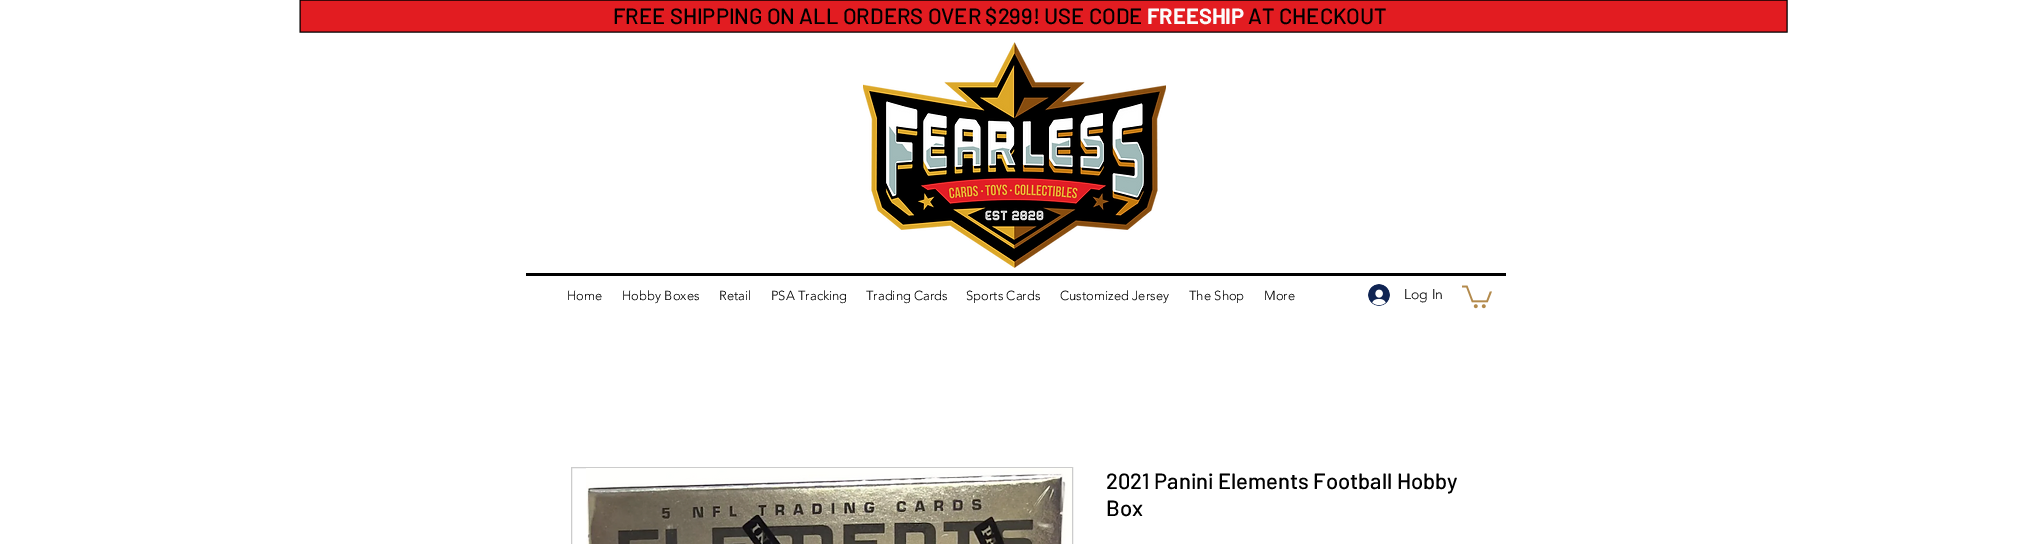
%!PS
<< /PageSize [2031 544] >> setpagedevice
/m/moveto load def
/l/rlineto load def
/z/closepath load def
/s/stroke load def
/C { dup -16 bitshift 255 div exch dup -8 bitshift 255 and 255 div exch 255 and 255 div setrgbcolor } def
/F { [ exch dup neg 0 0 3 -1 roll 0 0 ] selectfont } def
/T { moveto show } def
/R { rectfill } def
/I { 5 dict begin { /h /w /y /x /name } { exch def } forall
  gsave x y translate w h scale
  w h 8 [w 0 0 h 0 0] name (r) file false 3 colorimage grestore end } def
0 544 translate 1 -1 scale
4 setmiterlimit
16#FFFFFF C
0 0 2031 544 R
16#E21C21 C
300 0 1487 32 R
16#000000 C
1787 0 m 0 32 l -1487 0 l 0 -32 l z s
/Barlow-Medium 22 F
(FREE SHIPPING ON ALL ORDERS OVER $299! USE CODE) 613 24 T
/Barlow-Bold 22 F
16#FBFBFB C
(FREESHIP) 1147 24 T
/Barlow-Medium 22 F
16#000000 C
(AT CHECKOUT) 1248 24 T
(1.rgb) 863 42 303 226 I
526 273 980 3 R
/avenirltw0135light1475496-Light 13 F
(Home) 567 300 T
(Hobby Boxes) 622 300 T
(Retail) 719 300 T
(PSA Tracking) 771 300 T
(Trading Cards) 866 300 T
(Sports Cards) 966 300 T
(Customized Jersey) 1060 300 T
(The Shop) 1189 300 T
(More) 1264 300 T
(2.rgb) 1368 284 22 22 I
/avenirltw0135light1475496-Light 14 F
(Log In) 1404 299 T
(3.rgb) 1462 285 30 24 I
16#CCCCCC C
571.5 467.5 501 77 rectstroke
(4.rgb) 586 468 486 76 I
/Barlow-Medium 22 F
16#000000 C
(2021 Panini Elements Football Hobby) 1106 489 T
(Box) 1106 516 T
showpage
